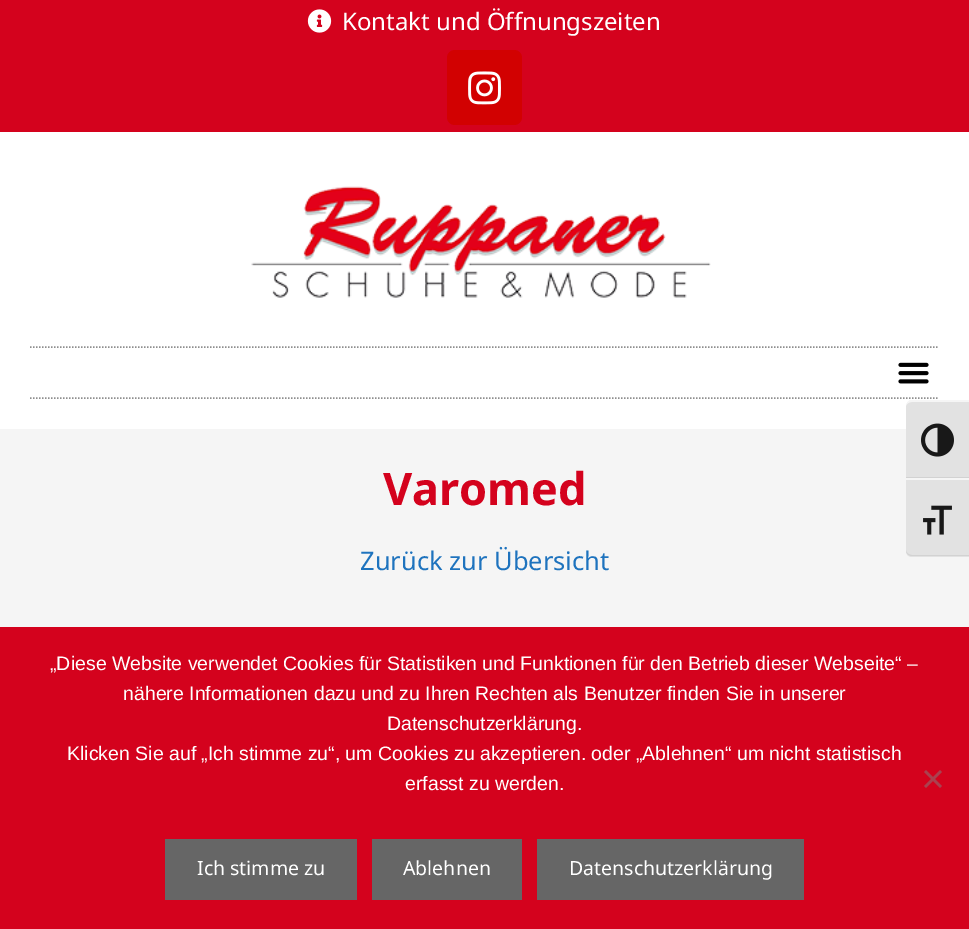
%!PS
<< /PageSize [969 929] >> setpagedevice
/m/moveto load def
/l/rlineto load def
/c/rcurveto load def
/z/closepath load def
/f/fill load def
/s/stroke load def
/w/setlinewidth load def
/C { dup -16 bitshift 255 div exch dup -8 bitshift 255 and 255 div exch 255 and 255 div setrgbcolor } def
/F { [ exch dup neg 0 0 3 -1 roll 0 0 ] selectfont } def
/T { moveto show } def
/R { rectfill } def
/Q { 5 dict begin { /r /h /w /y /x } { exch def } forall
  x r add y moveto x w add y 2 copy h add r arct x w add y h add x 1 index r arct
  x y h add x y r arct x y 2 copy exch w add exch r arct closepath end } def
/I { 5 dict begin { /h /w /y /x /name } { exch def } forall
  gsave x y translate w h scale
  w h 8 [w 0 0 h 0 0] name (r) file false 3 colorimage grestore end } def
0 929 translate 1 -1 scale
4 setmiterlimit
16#FFFFFF C
0 0 969 929 R
16#D4021D C
0 0 969 132 R
(1.rgb) 307 9 25 24 I
/NotoSans-Regular 24 F
16#FFFFFF C
(Kontakt und Öffnungszeiten) 342 30 T
16#D20101 C
447 50 75 75 8 Q f
(2.rgb) 468 71 33 34 I
(3.rgb) 251 186 460 112 I
16#8E8E8E C
1.5 w
[1.5 1.5] 0 setdash
30 347 m 909 0 l s
30 398 m 909 0 l s
(4.rgb) 898 362 31 22 I
16#F5F5F5 C
0 429 969 198 R
/NotoSans-Bold 45 F
16#D4021D C
(Varomed) 383 505 T
/NotoSans-Regular 25.5 F
16#1E73BE C
(Zurück zur Übersicht) 360 570 T
16#E2E2E2 C
912 401 m 57 0 l 0 78 l -63 0 l 0 -72 l 0 -3.5 2.5 -6 6 -6 c z f
16#F5F5F5 C
912 402 m -3 0 -6 2 -6 4 c 0 -2 2 -5 4 -6 c 59 0 l 0 2 l z f
16#D2D2D2 C
906 477 63 1 R
(5.rgb) 921 423 33 34 I
16#E2E2E2 C
906 479 m 63 0 l 0 78 l -57 0 l -3.5 0 -6 -2.5 -6 -6 c z f
16#F5F5F5 C
906 478 63 2 R
16#D2D2D2 C
969 556 m 0 -1 l -57 0 l -3 0 -6 -2 -6 -5 c 0 4 3 6 6 6 c z f
(6.rgb) 923 505 29 30 I
16#D4021D C
0 627 969 302 R
/LiberationSans-Regular 19.5 F
16#FFFFFF C
(„Diese Website verwendet Cookies für Statistiken und Funktionen für den Betrieb dieser Webseite“ –) 50 670 T
(nähere Informationen dazu und zu Ihren Rechten als Benutzer finden Sie in unserer) 123 700 T
(Datenschutzerklärung.) 387 730 T
(Klicken Sie auf „Ich stimme zu“, um Cookies zu akzeptieren. oder „Ablehnen“ um nicht statistisch) 67 760 T
(erfasst zu werden.) 405 790 T
16#AA414F C
940 770 m 2 2 l -16 16 l -2 -2 l z f
924 772 m 2 -2 l 16 16 l -2 2 l z f
16#666666 C
165 839 192 61 R
/NotoSans-Regular 19.5 F
16#FFFFFF C
(Ich stimme zu) 197 875 T
16#666666 C
372 839 150 61 R
16#FFFFFF C
(Ablehnen) 403 875 T
16#666666 C
537 839 267 61 R
16#FFFFFF C
(Datenschutzerklärung) 569 875 T
showpage
